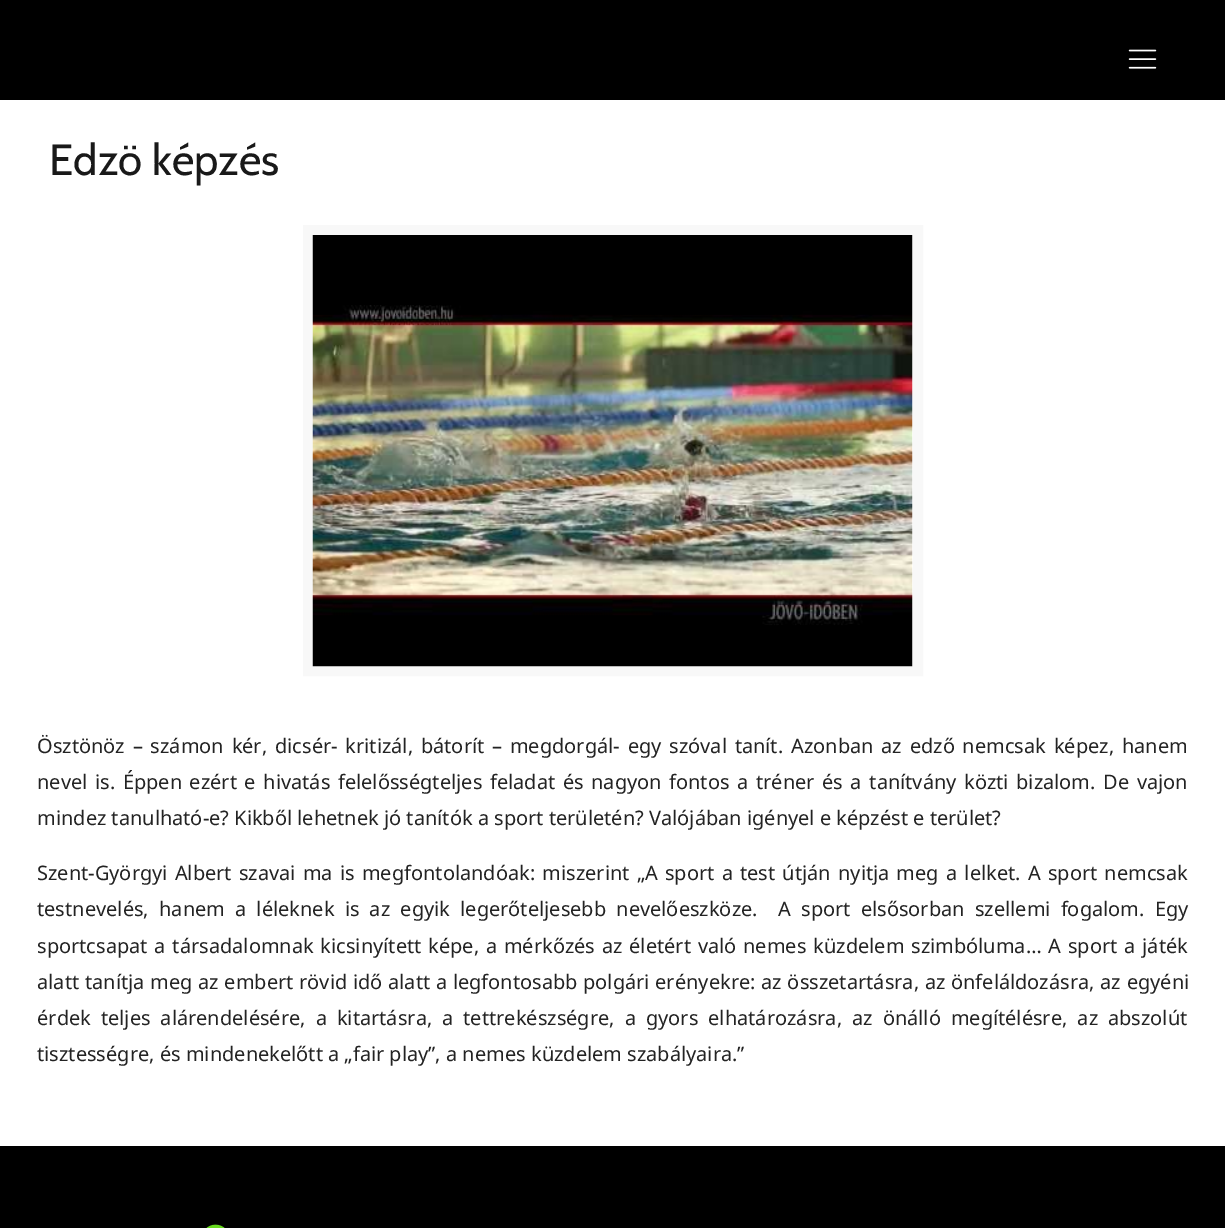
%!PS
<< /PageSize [1225 1228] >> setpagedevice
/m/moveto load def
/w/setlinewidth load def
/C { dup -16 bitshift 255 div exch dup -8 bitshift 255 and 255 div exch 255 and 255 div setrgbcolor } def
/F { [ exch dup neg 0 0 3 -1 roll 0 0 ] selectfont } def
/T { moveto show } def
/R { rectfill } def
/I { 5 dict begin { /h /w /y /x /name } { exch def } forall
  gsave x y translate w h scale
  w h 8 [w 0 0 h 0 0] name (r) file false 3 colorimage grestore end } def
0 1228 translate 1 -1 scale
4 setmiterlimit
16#FFFFFF C
0 0 1225 1228 R
16#000000 C
0 0 1225 100 R
(1.rgb) 1128 49 29 20 I
/Cabin-Regular 43.75 F
16#191919 C
(Edzö képzés) 49 175 T
16#F8F8F8 C
10 w
308 230 610 441 rectstroke
(2.rgb) 312 235 601 432 I
/NotoSans-Regular 20 F
16#232323 C
37 753 m 2.6 0 32 (Ösztönöz – számon kér, dicsér- kritizál, bátorít – megdorgál- egy szóval tanít. Azonban az edző nemcsak képez, hanem) widthshow
37 789 m 2.4 0 32 (nevel is. Éppen ezért e hivatás felelősségteljes feladat és nagyon fontos a tréner és a tanítvány közti bizalom. De vajon) widthshow
(mindez tanulható-e? Kikből lehetnek jó tanítók a sport területén? Valójában igényel e képzést e terület?) 37 825 T
37 880 m 2 0 32 (Szent-Györgyi Albert szavai ma is megfontolandóak: miszerint „A sport a test útján nyitja meg a lelket. A sport nemcsak) widthshow
37 916 m 5 0 32 (testnevelés, hanem a léleknek is az egyik legerőteljesebb nevelőeszköze.  A sport elsősorban szellemi fogalom. Egy) widthshow
37 953 m 1.6 0 32 (sportcsapat a társadalomnak kicsinyített képe, a mérkőzés az életért való nemes küzdelem szimbóluma… A sport a játék) widthshow
37 989 m .5 0 32 (alatt tanítja meg az embert rövid idő alatt a legfontosabb polgári erényekre: az összetartásra, az önfeláldozásra, az egyéni) widthshow
37 1025 m 4.75 0 32 (érdek teljes alárendelésére, a kitartásra, a tettrekészségre, a gyors elhatározásra, az önálló megítélésre, az abszolút) widthshow
(tisztességre, és mindenekelőtt a „fair play”, a nemes küzdelem szabályaira.”) 37 1061 T
16#000000 C
0 1146 1225 82 R
(3.rgb) 206 1224 19 4 I
showpage
